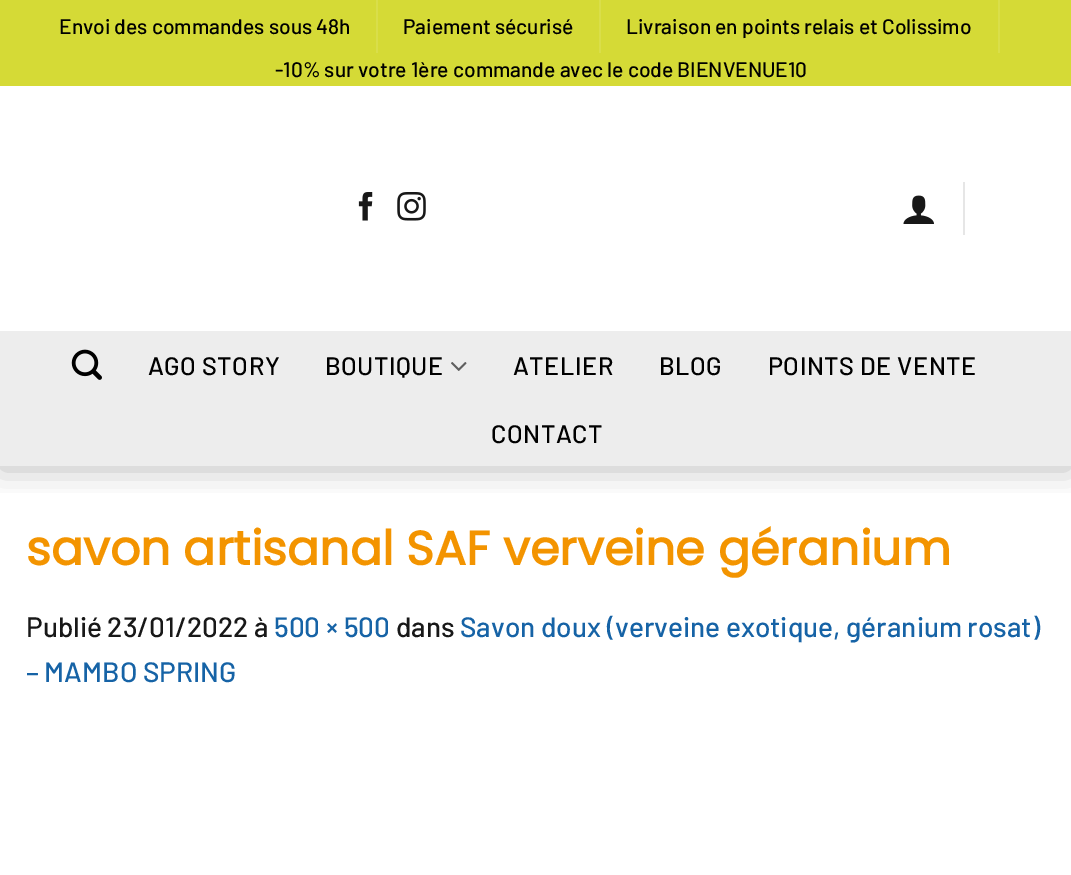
%!PS
<< /PageSize [1071 875] /PageUsesTransparency true >> setpagedevice
/m/moveto load def
/q/gsave load def
/Q_/grestore load def
/C { dup -16 bitshift 255 div exch dup -8 bitshift 255 and 255 div exch 255 and 255 div setrgbcolor } def
/F { [ exch dup neg 0 0 3 -1 roll 0 0 ] selectfont } def
/T { moveto show } def
/R { rectfill } def
/A { dup .setfillconstantalpha .setstrokeconstantalpha } def
/Q { 5 dict begin { /r /h /w /y /x } { exch def } forall
  x r add y moveto x w add y 2 copy h add r arct x w add y h add x 1 index r arct
  x y h add x y r arct x y 2 copy exch w add exch r arct closepath end } def
/S { 12 dict begin { /a /b /q /h /w /y /x } { exch def } forall gsave /was 0 def
  9 -2 -9 { dup b mul 4 div /e exch def 1 sub .425 mul 2.718 exch exp 1 add a .99 .min exch div /now exch def
    1 1 now sub 1 was sub div sub A /was now def
    w h .min e 2 mul add 0 gt { x e sub y e sub w e 2 mul add h e 2 mul add
      q e add b .6 mul add w h .min 2 div e add .min 0 .max Q fill } if } for grestore end } def
/I { 5 dict begin { /h /w /y /x /name } { exch def } forall
  gsave x y translate w h scale
  w h 8 [w 0 0 h 0 0] name (r) file false 3 colorimage grestore end } def
0 .pushpdf14devicefilter
0 875 translate 1 -1 scale
4 setmiterlimit
16#FFFFFF C
0 0 1071 875 R
q
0 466 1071 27 rectclip
16#181818 C
0 4 1071 465 0 16 .3 S
Q_
16#D5DA36 C
0 0 1071 86 R
/Barlow-Medium 21 F
16#000000 C
(Envoi des commandes sous 48h) 59 34 T
16#D9DE4A C
376 0 2 53 R
16#000000 C
(Paiement sécurisé) 403 34 T
16#D9DE4A C
599 0 2 53 R
16#000000 C
(Livraison en points relais et Colissimo) 626 34 T
16#D9DE4A C
998 0 2 53 R
16#000000 C
(-10% sur votre 1ère commande avec le code BIENVENUE10) 275 77 T
(1.rgb) 358 192 15 29 I
(2.rgb) 397 192 29 29 I
(3.rgb) 903 195 31 29 I
16#E6E6E6 C
963 182 2 53 R
16#EDEDED C
0 331 1071 135 R
(4.rgb) 71 349 31 31 I
/Barlow-Medium 25.25 F
16#000000 C
148 375 m .5 0 (AGO STORY) ashow
325 375 m .5 0 (BOUTIQUE) ashow
(5.rgb) 451 362 16 9 I
513 375 m .5 0 (ATELIER) ashow
659 375 m .5 0 (BLOG) ashow
768 375 m .5 0 (POINTS DE VENTE) ashow
491 443 m .5 0 (CONTACT) ashow
/Poppins-Bold 47.6 F
16#F39400 C
(savon artisanal SAF verveine géranium) 26 565 T
/Barlow-Medium 28 F
16#181818 C
(Publié 23/01/2022 à) 26 637 T
16#1663A6 C
(500 × 500) 274 637 T
16#181818 C
(dans) 396 637 T
16#1663A6 C
(Savon doux \(verveine exotique, géranium rosat\)) 460 637 T
(– MAMBO SPRING) 26 682 T
.poppdf14devicefilter showpage
